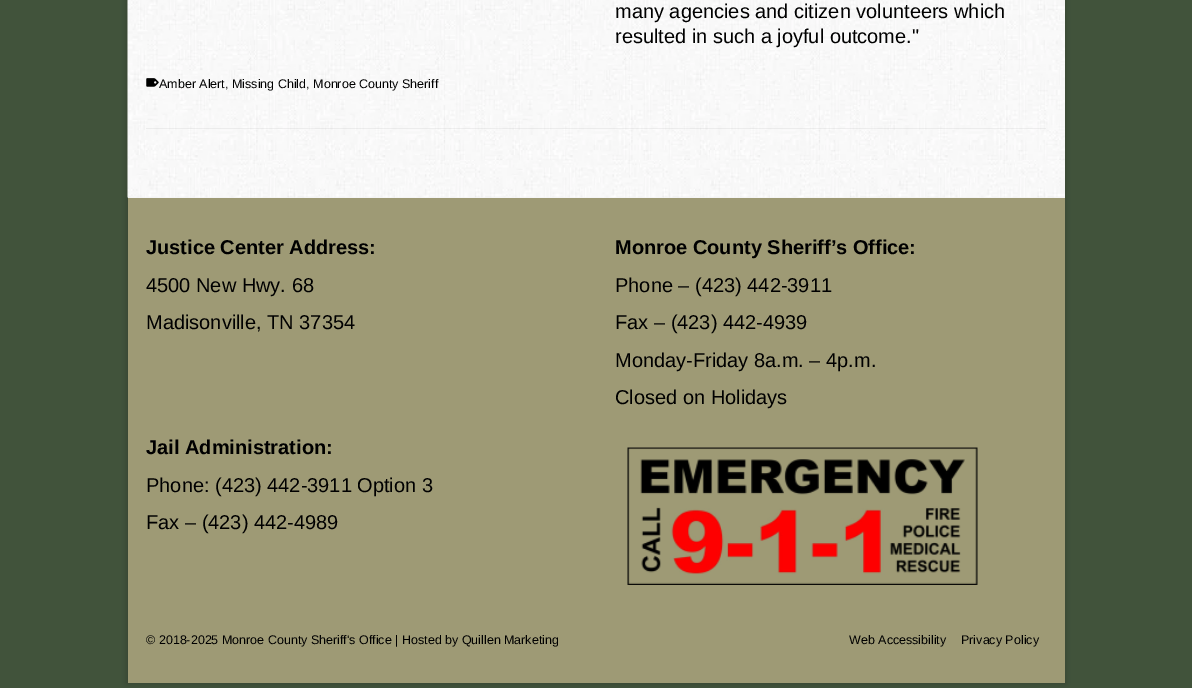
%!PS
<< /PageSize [1192 688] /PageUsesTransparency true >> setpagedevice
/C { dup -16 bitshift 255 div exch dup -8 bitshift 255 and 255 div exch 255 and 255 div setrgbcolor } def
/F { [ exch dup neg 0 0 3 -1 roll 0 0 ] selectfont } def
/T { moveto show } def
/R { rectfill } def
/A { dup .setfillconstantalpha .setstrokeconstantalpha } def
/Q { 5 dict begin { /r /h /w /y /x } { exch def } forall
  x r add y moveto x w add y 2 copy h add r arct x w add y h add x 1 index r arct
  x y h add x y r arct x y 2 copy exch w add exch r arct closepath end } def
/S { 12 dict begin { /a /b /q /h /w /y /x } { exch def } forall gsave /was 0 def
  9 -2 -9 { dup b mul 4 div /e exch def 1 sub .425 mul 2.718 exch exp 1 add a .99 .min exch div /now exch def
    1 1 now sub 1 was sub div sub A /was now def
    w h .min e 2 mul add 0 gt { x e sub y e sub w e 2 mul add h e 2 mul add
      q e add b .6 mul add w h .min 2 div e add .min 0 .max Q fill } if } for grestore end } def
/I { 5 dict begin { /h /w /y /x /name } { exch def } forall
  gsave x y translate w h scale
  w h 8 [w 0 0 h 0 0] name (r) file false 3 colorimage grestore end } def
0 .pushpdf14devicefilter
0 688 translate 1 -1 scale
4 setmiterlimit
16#41533B C
0 0 1192 688 R
16#000000 C
126 -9 940 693 0 3 .16 S
16#F2F2F2 C
128 197 937 1 R
(1.rgb) 127 0 938 198 I
/LiberationSans-Regular 20 F
16#000000 C
(many agencies and citizen volunteers which) 615 18 T
(resulted in such a joyful outcome.") 615 43 T
0.05 A
146 128 900 1 R
1 A
(2.rgb) 146 78 13 9 I
/LiberationSans-Regular 12.5 F
(Amber Alert, Missing Child, Monroe County Sheriff) 159 88 T
16#9E9A75 C
128 198 937 485 R
/LiberationSans-Bold 20 F
16#000000 C
(Justice Center Address:) 146 254 T
/LiberationSans-Regular 20 F
(4500 New Hwy. 68) 146 292 T
(Madisonville, TN 37354) 146 329 T
/LiberationSans-Bold 20 F
(Monroe County Sheriff’s Office:) 615 254 T
/LiberationSans-Regular 20 F
(Phone – \(423\) 442-3911) 615 292 T
(Fax – \(423\) 442-4939) 615 329 T
(Monday-Friday 8a.m. – 4p.m.) 615 367 T
(Closed on Holidays) 615 404 T
/LiberationSans-Bold 20 F
(Jail Administration:) 146 454 T
/LiberationSans-Regular 20 F
(Phone: \(423\) 442-3911 Option 3) 146 492 T
(Fax – \(423\) 442-4989) 146 529 T
(3.rgb) 627 447 351 138 I
/LiberationSans-Regular 12.5 F
(© 2018-2025 Monroe County Sheriff's Office | Hosted by Quillen Marketing) 146 644 T
(Web Accessibility) 849 644 T
(Privacy Policy) 961 644 T
.poppdf14devicefilter showpage
